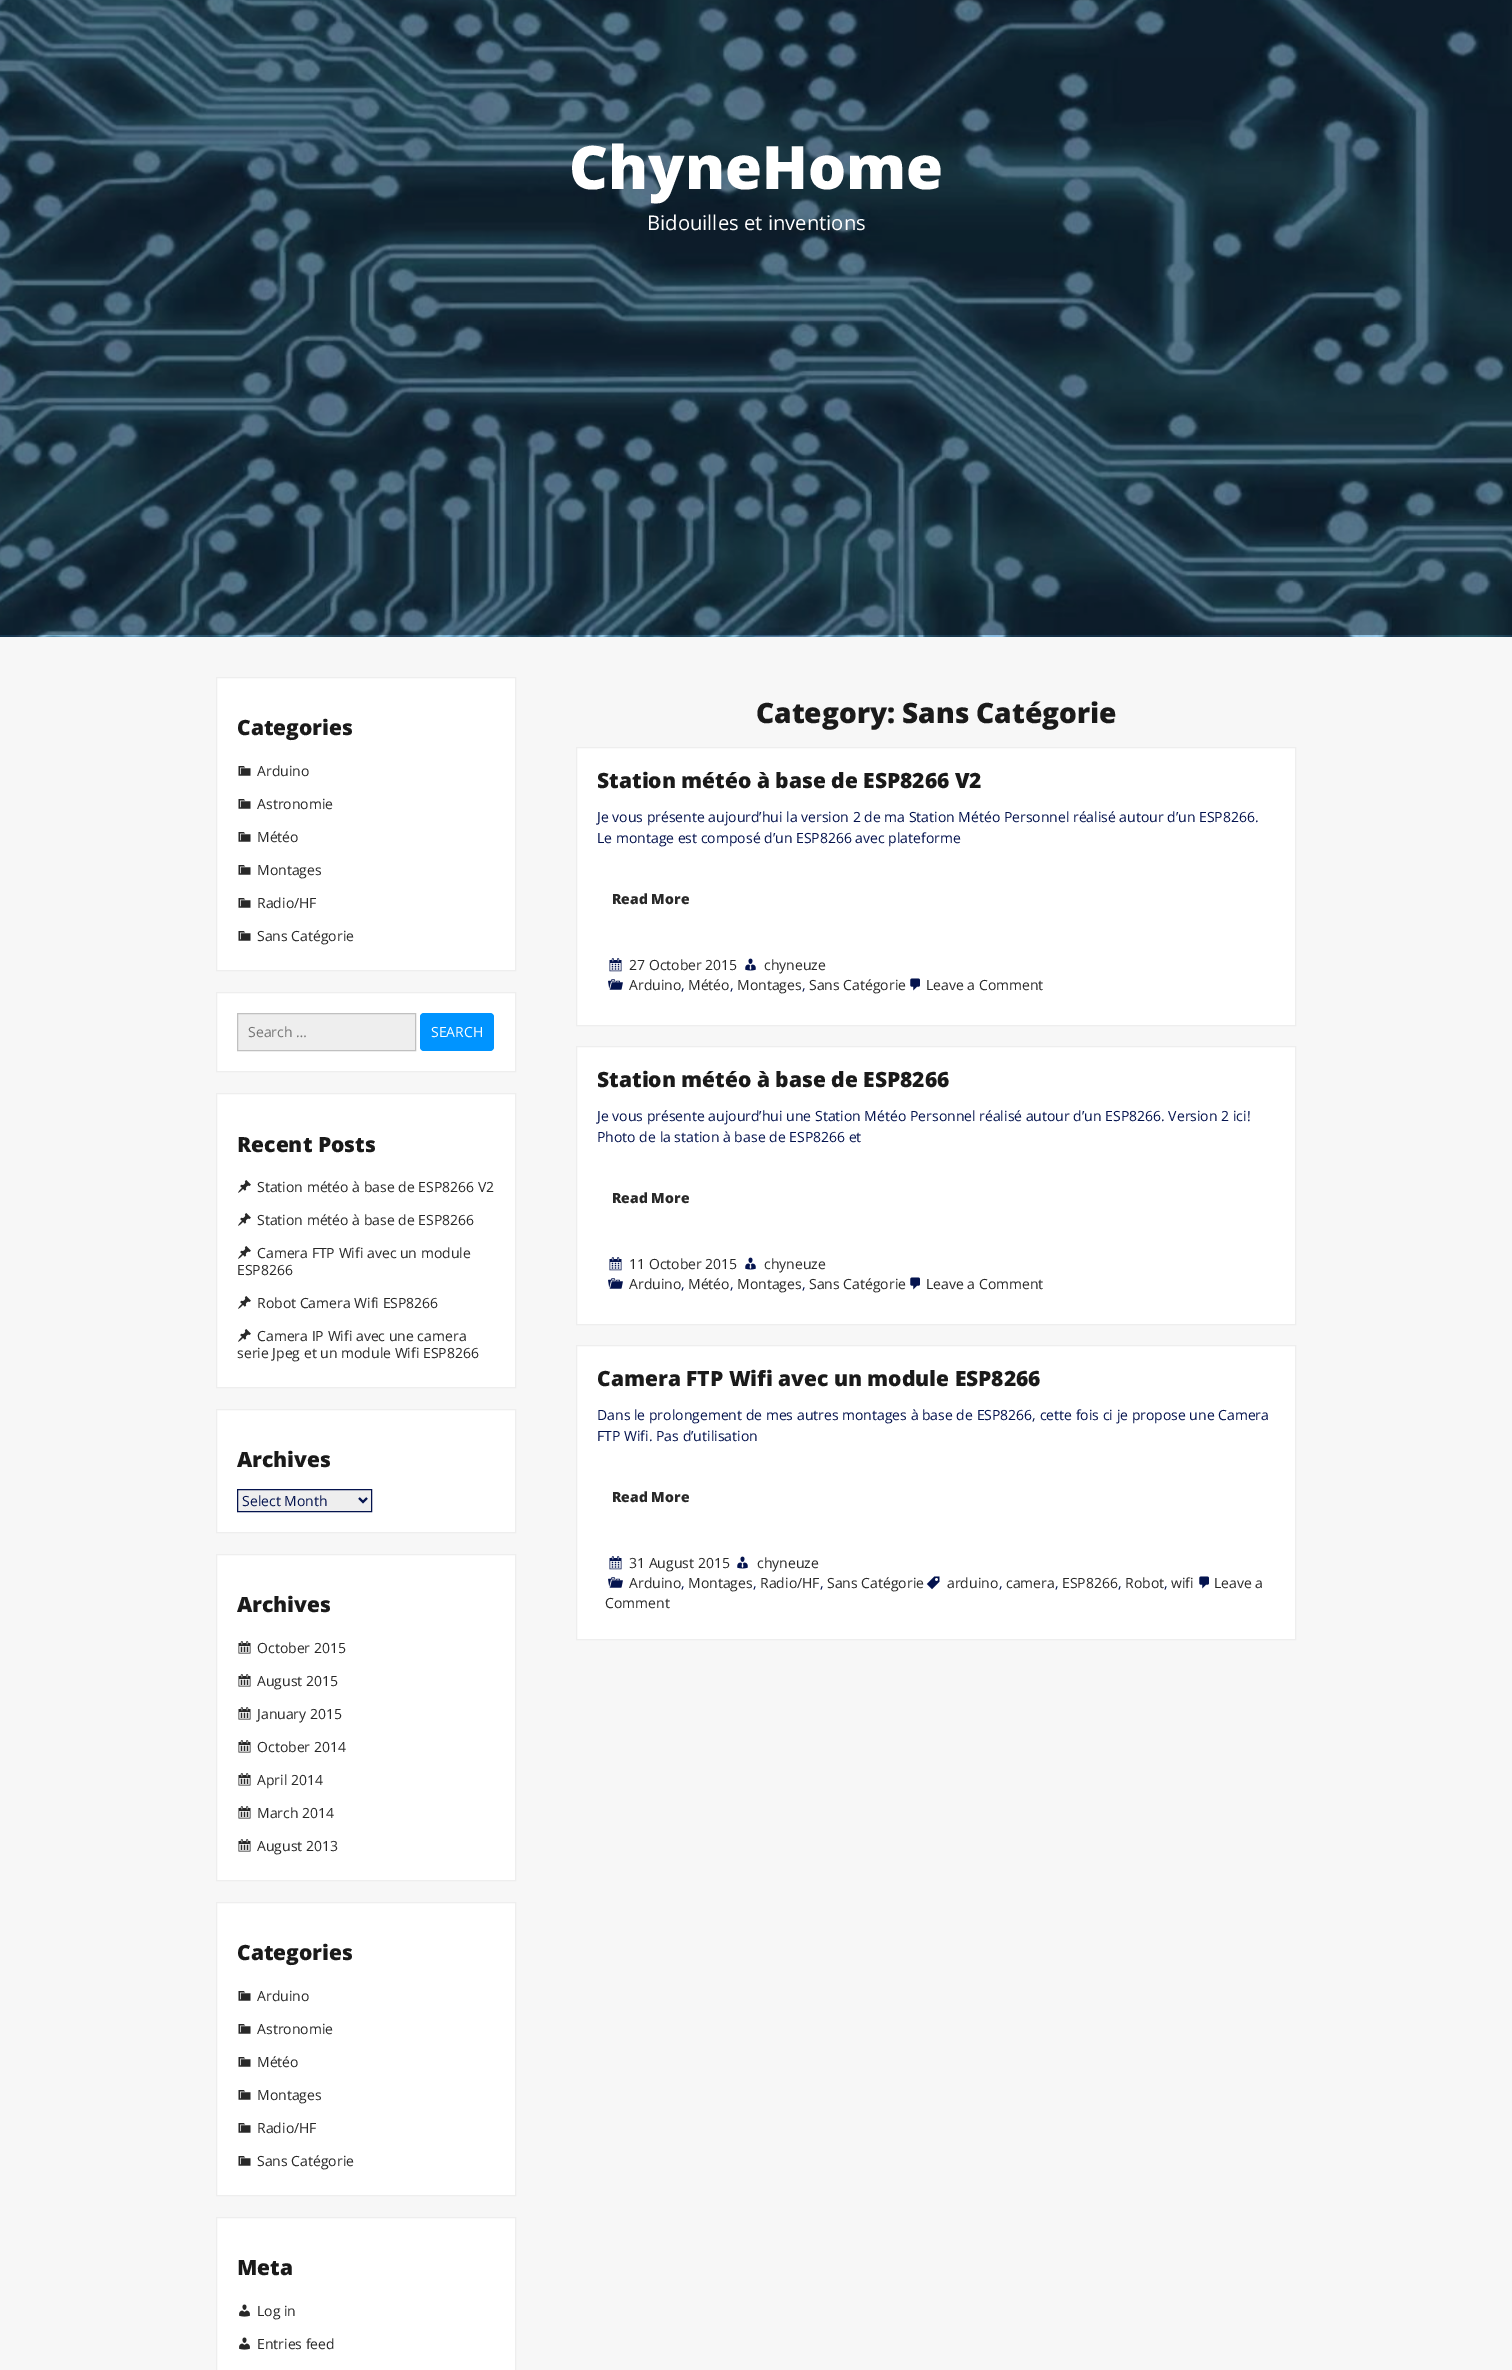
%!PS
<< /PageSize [1512 2370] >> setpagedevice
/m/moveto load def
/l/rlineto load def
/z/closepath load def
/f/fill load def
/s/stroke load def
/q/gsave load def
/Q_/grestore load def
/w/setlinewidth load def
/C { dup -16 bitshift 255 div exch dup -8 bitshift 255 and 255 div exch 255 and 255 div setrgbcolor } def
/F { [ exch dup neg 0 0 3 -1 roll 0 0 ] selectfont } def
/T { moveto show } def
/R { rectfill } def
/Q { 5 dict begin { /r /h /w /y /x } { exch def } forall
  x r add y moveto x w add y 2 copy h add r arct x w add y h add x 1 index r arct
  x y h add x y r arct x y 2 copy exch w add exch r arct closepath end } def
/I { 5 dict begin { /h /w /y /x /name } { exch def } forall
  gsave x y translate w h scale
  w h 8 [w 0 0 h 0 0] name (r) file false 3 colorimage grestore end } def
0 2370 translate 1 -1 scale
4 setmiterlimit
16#F7F7F7 C
0 0 1512 2370 R
(1.rgb) 0 0 1512 637 I
/OpenSans-ExtraBold 60 F
16#FFFFFF C
(ChyneHome) 569 189 T
/OpenSans-Regular 20.25 F
(Bidouilles et inventions) 647 230 T
216.5 677.5 m 299 0 l 0 293 l -299 0 l z q f Q_
16#EEEEEE C
s
/OpenSans-ExtraBold 21 F
16#1A1A1A C
(Categories) 237 735 T
(2.rgb) 238 766 13 10 I
/OpenSans-Regular 14 F
16#282828 C
(Arduino) 257 776 T
(2.rgb) 238 799 13 10 I
(Astronomie) 257 809 T
(2.rgb) 238 832 13 10 I
(Météo) 257 842 T
(2.rgb) 238 865 13 10 I
(Montages) 257 875 T
(2.rgb) 238 898 13 10 I
(Radio/HF) 257 908 T
(2.rgb) 238 931 13 10 I
(Sans Catégorie) 257 941 T
16#FFFFFF C
216.5 992.5 m 299 0 l 0 79 l -299 0 l z q f Q_
16#EEEEEE C
s
237.5 1013.5 m 178 0 l 0 37 l -178 0 l z q f Q_
16#C0C0C0 C
s
16#757575 C
(Search …) 248 1037 T
16#0094FF C
420 1013 74 38 4 Q f
16#FFFFFF C
(SEARCH) 431 1037 T
216.5 1093.5 m 299 0 l 0 294 l -299 0 l z q f Q_
16#EEEEEE C
s
/OpenSans-ExtraBold 21 F
16#1A1A1A C
(Recent Posts) 237 1152 T
(3.rgb) 238 1180 13 13 I
/OpenSans-Regular 14 F
16#282828 C
(Station météo à base de ESP8266 V2) 257 1192 T
(3.rgb) 238 1213 13 13 I
(Station météo à base de ESP8266) 257 1225 T
(3.rgb) 238 1246 13 13 I
(Camera FTP Wifi avec un module) 257 1258 T
(ESP8266) 237 1275 T
(3.rgb) 238 1296 13 13 I
(Robot Camera Wifi ESP8266) 257 1308 T
(3.rgb) 238 1329 13 13 I
(Camera IP Wifi avec une camera) 257 1341 T
(serie Jpeg et un module Wifi ESP8266) 237 1358 T
16#FFFFFF C
216.5 1409.5 m 299 0 l 0 123 l -299 0 l z q f Q_
16#EEEEEE C
s
/OpenSans-ExtraBold 21 F
16#1A1A1A C
(Archives) 237 1467 T
16#EEEEEE C
237.5 1489.5 m 134 0 l 0 22 l -134 0 l z q f Q_
16#04134E C
s
2 w
359 1498 m 4 4 l 4 -4 l s
/OpenSans-Regular 14 F
(Select Month) 242 1506 T
16#FFFFFF C
216.5 1554.5 m 299 0 l 0 326 l -299 0 l z q f Q_
16#EEEEEE C
1 w
s
/OpenSans-ExtraBold 21 F
16#1A1A1A C
(Archives) 237 1612 T
(4.rgb) 238 1641 13 13 I
/OpenSans-Regular 14 F
16#282828 C
(October 2015) 257 1653 T
(4.rgb) 238 1674 13 13 I
(August 2015) 257 1686 T
(4.rgb) 238 1707 13 13 I
(January 2015) 257 1719 T
(4.rgb) 238 1740 13 13 I
(October 2014) 257 1752 T
(4.rgb) 238 1773 13 13 I
(April 2014) 257 1785 T
(4.rgb) 238 1806 13 13 I
(March 2014) 257 1818 T
(4.rgb) 238 1839 13 13 I
(August 2013) 257 1851 T
16#FFFFFF C
216.5 1902.5 m 299 0 l 0 293 l -299 0 l z q f Q_
16#EEEEEE C
s
/OpenSans-ExtraBold 21 F
16#1A1A1A C
(Categories) 237 1960 T
(2.rgb) 238 1991 13 10 I
/OpenSans-Regular 14 F
16#282828 C
(Arduino) 257 2001 T
(2.rgb) 238 2024 13 10 I
(Astronomie) 257 2034 T
(2.rgb) 238 2057 13 10 I
(Météo) 257 2067 T
(2.rgb) 238 2090 13 10 I
(Montages) 257 2100 T
(2.rgb) 238 2123 13 10 I
(Radio/HF) 257 2133 T
(2.rgb) 238 2156 13 10 I
(Sans Catégorie) 257 2166 T
16#FFFFFF C
216.5 2217.5 m 299 0 l 0 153 l -299 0 l z q f Q_
16#EEEEEE C
s
/OpenSans-ExtraBold 21 F
16#1A1A1A C
(Meta) 237 2275 T
(5.rgb) 239 2304 11 13 I
/OpenSans-Regular 14 F
16#282828 C
(Log in) 257 2316 T
(5.rgb) 239 2337 11 13 I
(Entries feed) 257 2349 T
/OpenSans-ExtraBold 28 F
16#1A1A1A C
(Category: Sans Catégorie) 756 723 T
16#FFFFFF C
576.5 747.5 m 719 0 l 0 278 l -719 0 l z q f Q_
16#EEEEEE C
s
/OpenSans-ExtraBold 21 F
16#1A1A1A C
(Station météo à base de ESP8266 V2) 597 788 T
/OpenSans-Regular 14 F
16#04134E C
(Je vous présente aujourd’hui la version 2 de ma Station Météo Personnel réalisé autour d’un ESP8266.) 597 822 T
(Le montage est composé d’un ESP8266 avec plateforme) 597 843 T
/OpenSans-ExtraBold 14 F
16#282828 C
(Read More) 612 904 T
(6.rgb) 609 958 13 14 I
/OpenSans-Regular 14 F
(27 October 2015) 629 970 T
(7.rgb) 745 958 11 13 I
(chyneuze) 764 970 T
(8.rgb) 608 979 15 11 I
(Arduino) 629 990 T
16#04134E C
(,) 681 990 T
16#282828 C
(Météo) 688 990 T
16#04134E C
(,) 730 990 T
16#282828 C
(Montages) 737 990 T
16#04134E C
(,) 802 990 T
16#282828 C
(Sans Catégorie) 809 990 T
(9.rgb) 910 978 10 13 I
(Leave a Comment) 926 990 T
16#FFFFFF C
576.5 1046.5 m 719 0 l 0 278 l -719 0 l z q f Q_
16#EEEEEE C
s
/OpenSans-ExtraBold 21 F
16#1A1A1A C
(Station météo à base de ESP8266) 597 1087 T
/OpenSans-Regular 14 F
16#04134E C
(Je vous présente aujourd’hui une Station Météo Personnel réalisé autour d’un ESP8266. Version 2 ici!) 597 1121 T
(Photo de la station à base de ESP8266 et) 597 1142 T
/OpenSans-ExtraBold 14 F
16#282828 C
(Read More) 612 1203 T
(6.rgb) 609 1257 13 14 I
/OpenSans-Regular 14 F
(11 October 2015) 629 1269 T
(7.rgb) 745 1257 11 13 I
(chyneuze) 764 1269 T
(8.rgb) 608 1278 15 11 I
(Arduino) 629 1289 T
16#04134E C
(,) 681 1289 T
16#282828 C
(Météo) 688 1289 T
16#04134E C
(,) 730 1289 T
16#282828 C
(Montages) 737 1289 T
16#04134E C
(,) 802 1289 T
16#282828 C
(Sans Catégorie) 809 1289 T
(9.rgb) 910 1277 10 13 I
(Leave a Comment) 926 1289 T
16#FFFFFF C
576.5 1345.5 m 719 0 l 0 294 l -719 0 l z q f Q_
16#EEEEEE C
s
/OpenSans-ExtraBold 21 F
16#1A1A1A C
(Camera FTP Wifi avec un module ESP8266) 597 1386 T
/OpenSans-Regular 14 F
16#04134E C
(Dans le prolongement de mes autres montages à base de ESP8266, cette fois ci je propose une Camera) 597 1420 T
(FTP Wifi. Pas d’utilisation) 597 1441 T
/OpenSans-ExtraBold 14 F
16#282828 C
(Read More) 612 1502 T
(6.rgb) 609 1556 13 14 I
/OpenSans-Regular 14 F
(31 August 2015) 629 1568 T
(7.rgb) 737 1556 11 13 I
(chyneuze) 757 1568 T
(8.rgb) 608 1577 15 11 I
(Arduino) 629 1588 T
16#04134E C
(,) 681 1588 T
16#282828 C
(Montages) 688 1588 T
16#04134E C
(,) 753 1588 T
16#282828 C
(Radio/HF) 760 1588 T
16#04134E C
(,) 820 1588 T
16#282828 C
(Sans Catégorie) 827 1588 T
(10.rgb) 926 1576 14 14 I
(arduino) 947 1588 T
16#04134E C
(,) 999 1588 T
16#282828 C
(camera) 1006 1588 T
16#04134E C
(,) 1055 1588 T
16#282828 C
(ESP8266) 1062 1588 T
16#04134E C
(,) 1118 1588 T
16#282828 C
(Robot) 1125 1588 T
16#04134E C
(,) 1164 1588 T
16#282828 C
(wifi) 1171 1588 T
(9.rgb) 1199 1576 10 13 I
(Leave a) 1214 1588 T
(Comment) 605 1608 T
showpage
